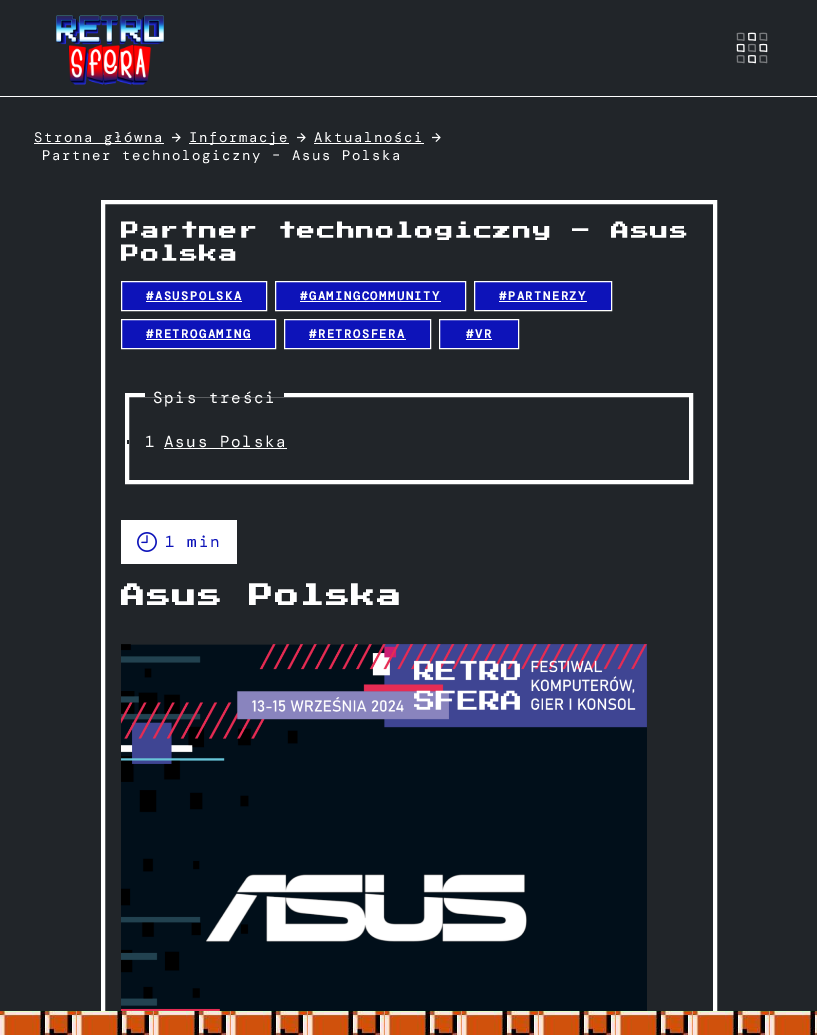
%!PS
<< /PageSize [817 1035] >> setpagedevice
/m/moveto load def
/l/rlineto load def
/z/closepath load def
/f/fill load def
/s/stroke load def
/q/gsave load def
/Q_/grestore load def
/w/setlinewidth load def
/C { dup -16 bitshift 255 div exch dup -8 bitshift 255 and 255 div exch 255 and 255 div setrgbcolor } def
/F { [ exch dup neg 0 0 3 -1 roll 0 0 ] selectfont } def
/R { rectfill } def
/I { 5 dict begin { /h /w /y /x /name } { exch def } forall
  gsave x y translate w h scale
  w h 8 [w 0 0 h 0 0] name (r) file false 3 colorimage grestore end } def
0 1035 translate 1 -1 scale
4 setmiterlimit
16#212529 C
0 0 817 1035 R
16#FFFFFF C
0 96 817 1 R
(1.rgb) 56 15 108 70 I
(2.rgb) 736 32 32 32 I
34 143 130 1 R
/DMMono-Regular 14 F
34 142 m 1.6 0 (Strona główna) ashow
(3.rgb) 172 133 9 9 I
189 143 100 1 R
189 142 m 1.6 0 (Informacje) ashow
(3.rgb) 297 133 9 9 I
314 142 m 1.6 0 (Aktualności) ashow
314 143 110 1 R
(3.rgb) 432 133 9 9 I
42 160 m 1.6 0 (Partner technologiczny – Asus Polska) ashow
4 w
103 202 612 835 rectstroke
/PressStart2P-Bold 18 F
121 240 m 1.6 0 (Partner technologiczny – Asus) ashow
121 263 m 1.6 0 (Polska) ashow
16#0D13B9 C
121.5 281.5 m 145 0 l 0 29 l -145 0 l z q f Q_
16#FFFFFF C
1 w
s
/DMMono-Bold 12 F
146 300 m 1.6 0 (#ASUSPOLSKA) ashow
146 301 96 1 R
16#0D13B9 C
275.5 281.5 m 190 0 l 0 29 l -190 0 l z q f Q_
16#FFFFFF C
s
300 300 m 1.6 0 (#GAMINGCOMMUNITY) ashow
300 301 141 1 R
16#0D13B9 C
474.5 281.5 m 137 0 l 0 29 l -137 0 l z q f Q_
16#FFFFFF C
s
499 300 m 1.6 0 (#PARTNERZY) ashow
499 301 88 1 R
16#0D13B9 C
121.5 319.5 m 154 0 l 0 29 l -154 0 l z q f Q_
16#FFFFFF C
s
146 338 m 1.6 0 (#RETROGAMING) ashow
146 339 105 1 R
16#0D13B9 C
284.5 319.5 m 146 0 l 0 29 l -146 0 l z q f Q_
16#FFFFFF C
s
309 338 m 1.6 0 (#RETROSFERA) ashow
309 339 97 1 R
16#0D13B9 C
439.5 319.5 m 79 0 l 0 29 l -79 0 l z q f Q_
16#FFFFFF C
s
466 338 m 1.6 0 (#VR) ashow
466 339 26 1 R
4 w
127 395 564 87 rectstroke
16#212529 C
145 393 139 4 R
/DMMono-Regular 16 F
16#FFFFFF C
153 403 m 1.6 0 (Spis treści) ashow
16#212529 C
127 440 2 4 R
16#FFFFFF C
145 447 m 1.6 0 (1) ashow
164 447 m 1.6 0 (Asus Polska) ashow
164 448 123 1 R
121 520 116 44 R
(4.rgb) 137 532 20 20 I
16#0D13B9 C
165 547 m 1.6 0 (1 min) ashow
/PressStart2P-Bold 24 F
16#FFFFFF C
121 608 m 1.6 0 (Asus Polska) ashow
(5.rgb) 121 644 526 367 I
(6.rgb) 0 1011 817 24 I
showpage
